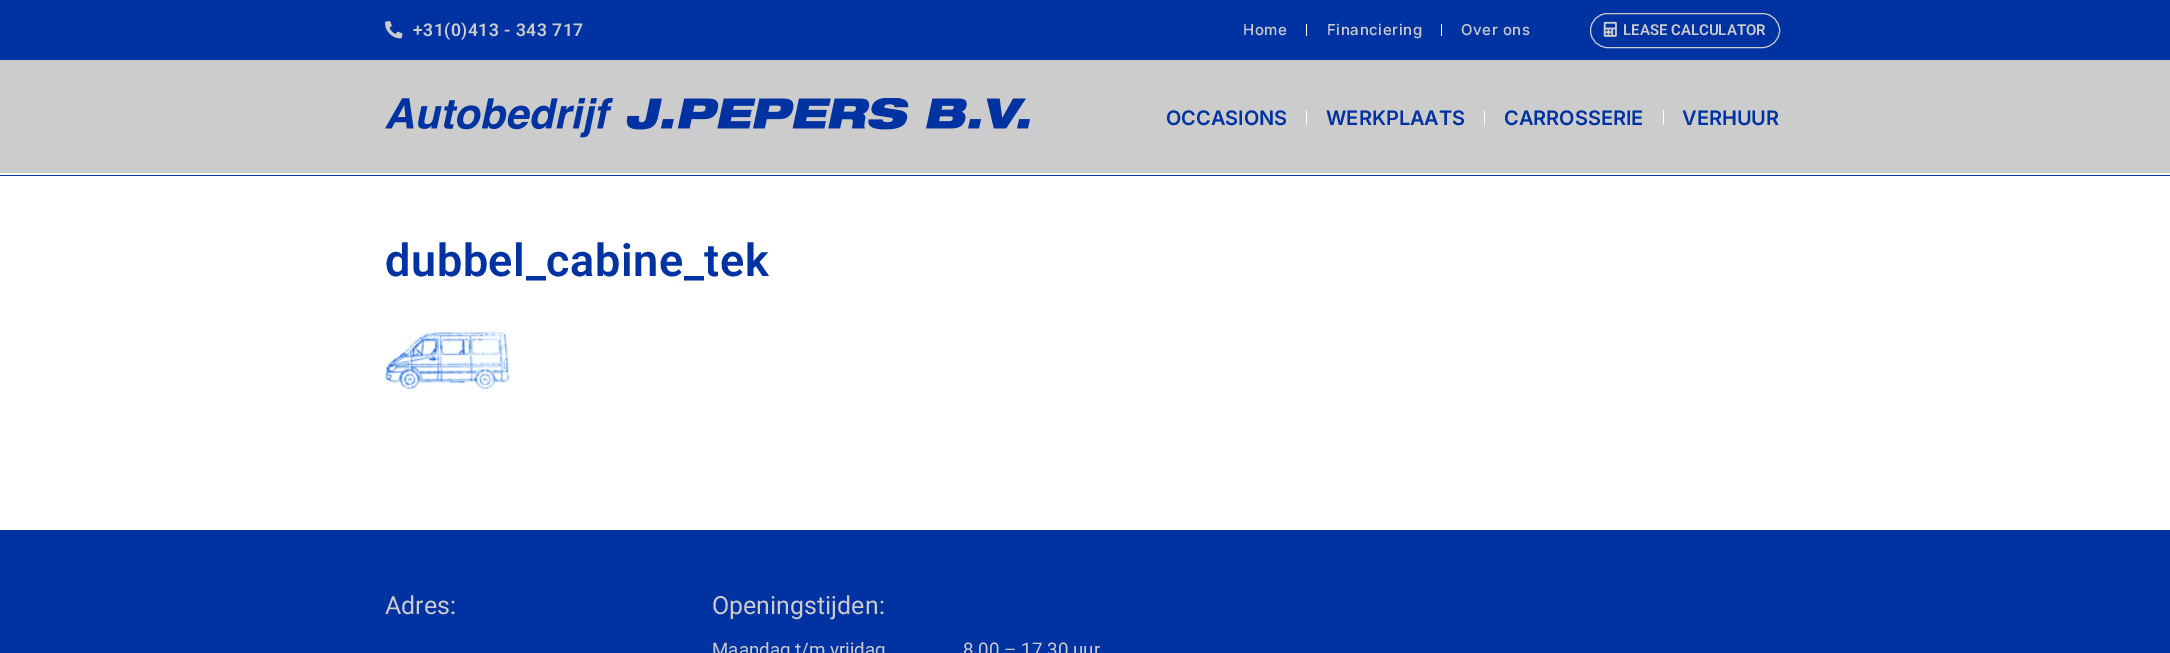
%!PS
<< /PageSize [2170 653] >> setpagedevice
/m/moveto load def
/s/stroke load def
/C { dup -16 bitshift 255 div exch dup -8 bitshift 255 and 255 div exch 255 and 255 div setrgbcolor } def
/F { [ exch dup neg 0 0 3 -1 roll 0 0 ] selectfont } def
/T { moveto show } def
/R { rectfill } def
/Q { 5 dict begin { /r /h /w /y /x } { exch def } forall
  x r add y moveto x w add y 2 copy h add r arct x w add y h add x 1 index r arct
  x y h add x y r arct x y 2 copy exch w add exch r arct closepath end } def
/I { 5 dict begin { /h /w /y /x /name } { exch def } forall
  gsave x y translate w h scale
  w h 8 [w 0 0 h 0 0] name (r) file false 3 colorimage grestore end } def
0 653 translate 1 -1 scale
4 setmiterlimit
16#FFFFFF C
0 0 2170 653 R
16#0033A1 C
0 0 2170 60 R
(1.rgb) 385 21 18 18 I
/Roboto-SemiBold 17.5 F
16#CCCCCC C
413 36 m .5 0 (+31\(0\)413 - 343 717) ashow
/Inter-Medium 15 F
1243 35 m .6 0 (Home) ashow
16#FFFFFF C
1306 24 1 12 R
16#CCCCCC C
1327 35 m .6 0 (Financiering) ashow
16#FFFFFF C
1441 24 1 12 R
16#CCCCCC C
1461 35 m .6 0 (Over ons) ashow
1590.5 13.5 189 34 17 Q s
(2.rgb) 1603 21 14 16 I
/Roboto-SemiBold 15 F
(LEASE CALCULATOR) 1623 35 T
0 60 2170 113 R
(3.rgb) 385 98 645 40 I
/Inter-SemiBold 20 F
16#0033A1 C
(OCCASIONS) 1166 125 T
16#FFFFFF C
1306 110 1 15 R
16#0033A1 C
(WERKPLAATS) 1326 125 T
16#FFFFFF C
1484 110 1 15 R
16#0033A1 C
(CARROSSERIE) 1504 125 T
16#FFFFFF C
1663 110 1 15 R
16#0033A1 C
(VERHUUR) 1682 125 T
0 175 2170 1 R
/Roboto-SemiBold 45 F
385 276 m .6 0 (dubbel_cabine_tek) ashow
(4.rgb) 385 331 125 58 I
0 530 2170 123 R
/Roboto-Regular 25 F
16#CCCCCC C
(Adres:) 385 614 T
(Openingstijden:) 712 614 T
/Roboto-Regular 18.75 F
(Maandag t/m vrijdag) 712 656 T
(8.00 – 17.30 uur) 963 656 T
showpage
